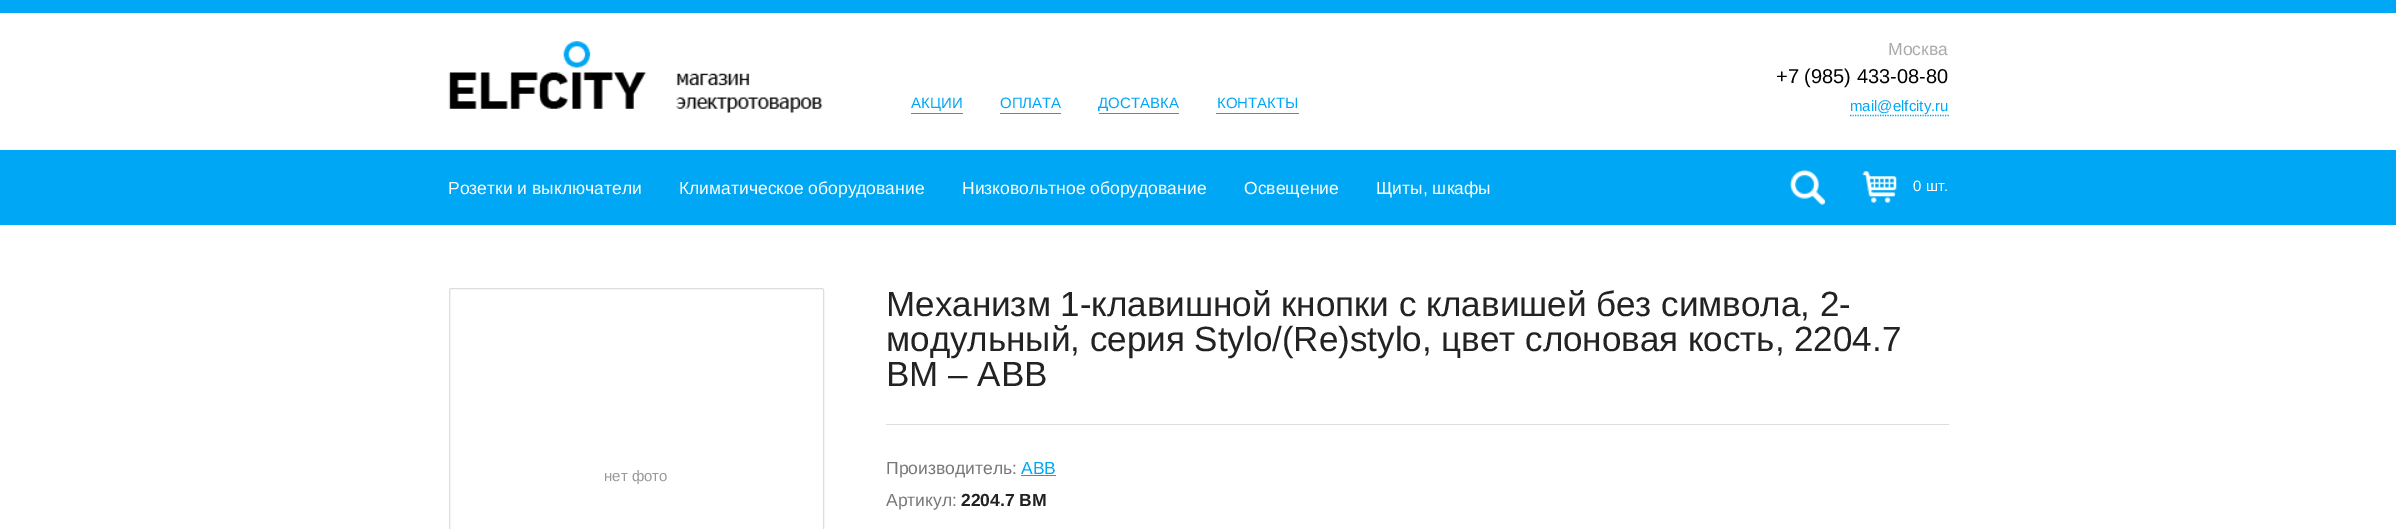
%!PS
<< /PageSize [2396 529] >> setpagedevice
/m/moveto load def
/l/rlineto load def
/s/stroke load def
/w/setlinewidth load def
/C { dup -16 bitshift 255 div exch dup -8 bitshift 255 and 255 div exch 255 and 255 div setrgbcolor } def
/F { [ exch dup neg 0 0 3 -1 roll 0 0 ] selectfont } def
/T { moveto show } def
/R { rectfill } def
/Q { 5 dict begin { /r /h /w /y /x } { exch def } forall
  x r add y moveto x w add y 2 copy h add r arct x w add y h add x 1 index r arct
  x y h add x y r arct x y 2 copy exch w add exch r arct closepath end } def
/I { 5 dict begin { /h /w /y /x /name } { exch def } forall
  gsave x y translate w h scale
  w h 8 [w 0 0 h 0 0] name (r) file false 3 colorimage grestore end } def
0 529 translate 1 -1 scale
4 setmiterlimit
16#FFFFFF C
0 0 2396 529 R
16#00A7F4 C
0 0 2396 13 R
(1.rgb) 448 41 375 72 I
/LiberationSans-Regular 15 F
(АКЦИИ) 911 108 T
911 113 52 1 R
(ОПЛАТА) 1000 108 T
1000 113 61 1 R
(ДОСТАВКА) 1098 108 T
1099 113 80 1 R
(КОНТАКТЫ) 1217 108 T
1216 113 83 1 R
/LiberationSans-Regular 17.5 F
16#AAAAAA C
(Москва) 1888 55 T
/LiberationSans-Regular 20 F
16#000000 C
(+7 \(985\) 433-08-80) 1776 83 T
16#00A7F4 C
1.2 w
[1.25 1.25] 0 setdash
1850 115.5 m 99 0 l s
/LiberationSans-Regular 15 F
(mail@elfcity.ru) 1850 111 T
0 150 2396 75 R
/LiberationSans-Regular 17.5 F
16#FFFFFF C
(Розетки и выключатели) 448 194 T
(Климатическое оборудование) 679 194 T
(Низковольтное оборудование) 962 194 T
(Освещение) 1244 194 T
(Щиты, шкафы) 1376 194 T
(2.rgb) 1790 170 35 35 I
(3.rgb) 1862 171 35 32 I
/LiberationSans-Regular 15 F
(0 шт.) 1913 191 T
16#DDDDDD C
1 w
[] 0 setdash
449.5 288.5 374 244 2 Q s
16#999999 C
(нет фото) 604 481 T
16#DDDDDD C
886 424 1063 1 R
/LiberationSans-Regular 35 F
16#222222 C
(Механизм 1-клавишной кнопки с клавишей без символа, 2-) 886 316 T
(модульный, серия Stylo/\(Re\)stylo, цвет слоновая кость, 2204.7) 886 351 T
(BM – ABB) 886 386 T
/LiberationSans-Regular 17.5 F
16#777777 C
(Производитель:) 886 474 T
16#00A7F4 C
(ABB) 1021 474 T
1021 475 35 1 R
16#777777 C
(Артикул:) 886 506 T
/LiberationSans-Bold 17.5 F
16#222222 C
(2204.7 BM) 961 506 T
showpage
